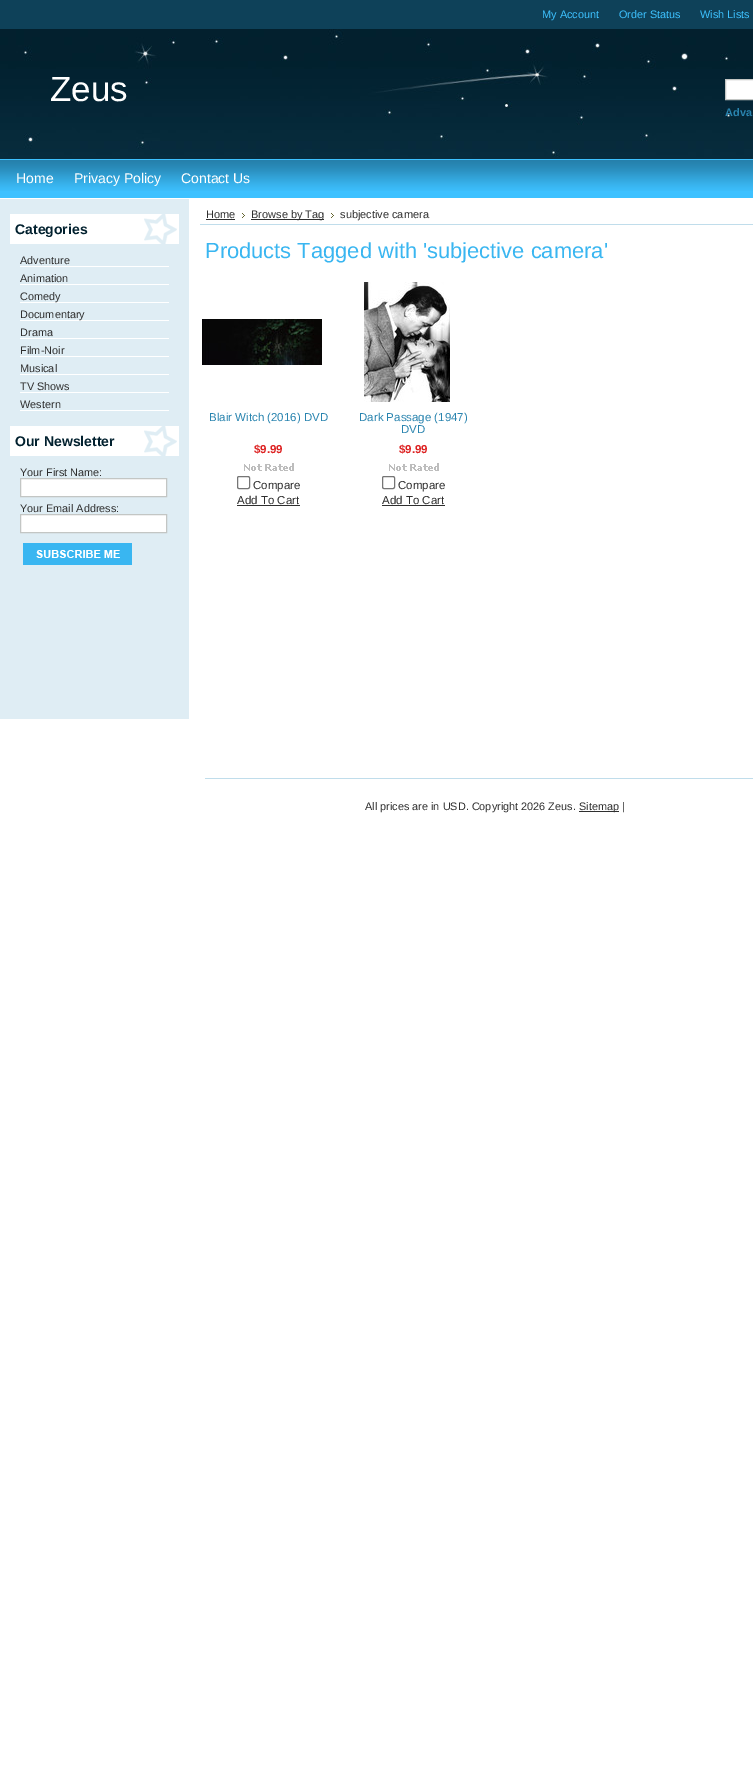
%!PS
<< /PageSize [753 1776] >> setpagedevice
/m/moveto load def
/l/rlineto load def
/z/closepath load def
/f/fill load def
/s/stroke load def
/q/gsave load def
/Q_/grestore load def
/C { dup -16 bitshift 255 div exch dup -8 bitshift 255 and 255 div exch 255 and 255 div setrgbcolor } def
/F { [ exch dup neg 0 0 3 -1 roll 0 0 ] selectfont } def
/T { moveto show } def
/R { rectfill } def
/Q { 5 dict begin { /r /h /w /y /x } { exch def } forall
  x r add y moveto x w add y 2 copy h add r arct x w add y h add x 1 index r arct
  x y h add x y r arct x y 2 copy exch w add exch r arct closepath end } def
/I { 5 dict begin { /h /w /y /x /name } { exch def } forall
  gsave x y translate w h scale
  w h 8 [w 0 0 h 0 0] name (r) file false 3 colorimage grestore end } def
0 1776 translate 1 -1 scale
4 setmiterlimit
16#FFFFFF C
0 0 753 1776 R
16#0E4159 C
0 0 753 29 R
/LiberationSans-Regular 10.9 F
16#3DC1FF C
(My Account) 542 18 T
(Order Status) 619 18 T
(Wish Lists) 700 18 T
(1.rgb) 0 29 753 130 I
/LiberationSans-Regular 35 F
16#FFFFFF C
(Zeus) 50 101 T
725.5 79.5 m 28 0 l 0 20 l -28 0 l z q f Q_
16#C3C6C4 C
s
/LiberationSans-Bold 10.9 F
16#2984AF C
(Adva) 725 116 T
16#3DC1FF C
0 159 753 39 R
(2.rgb) 0 160 753 31 I
/LiberationSans-Regular 14 F
16#FFFFFF C
(Home) 16 183 T
(Privacy Policy) 74 183 T
(Contact Us) 181 183 T
16#DFEDF4 C
0 199 189 520 R
16#FFFFFF C
10 214 169 30 R
(3.rgb) 144 214 33 30 I
/LiberationSans-Bold 14 F
16#02212F C
(Categories) 15 234 T
16#FFFFFF C
20 266 149 1 R
/LiberationSans-Regular 10.9 F
16#2F2F2F C
(Adventure) 20 264 T
16#FFFFFF C
20 284 149 1 R
16#2F2F2F C
(Animation) 20 282 T
16#FFFFFF C
20 302 149 1 R
16#2F2F2F C
(Comedy) 20 300 T
16#FFFFFF C
20 320 149 1 R
16#2F2F2F C
(Documentary) 20 318 T
16#FFFFFF C
20 338 149 1 R
16#2F2F2F C
(Drama) 20 336 T
16#FFFFFF C
20 356 149 1 R
16#2F2F2F C
(Film-Noir) 20 354 T
16#FFFFFF C
20 374 149 1 R
16#2F2F2F C
(Musical) 20 372 T
16#FFFFFF C
20 392 149 1 R
16#2F2F2F C
(TV Shows) 20 390 T
16#FFFFFF C
20 410 149 1 R
16#2F2F2F C
(Western) 20 408 T
16#FFFFFF C
10 426 169 30 R
(3.rgb) 144 426 33 30 I
/LiberationSans-Bold 14 F
16#02212F C
(Our Newsletter) 15 446 T
/LiberationSans-Regular 10.9 F
16#2F2F2F C
(Your First Name:) 20 476 T
16#FFFFFF C
20.5 478.5 m 146 0 l 0 18 l -146 0 l z q f Q_
16#C3C6C4 C
s
16#2F2F2F C
(Your Email Address:) 20 512 T
16#FFFFFF C
20.5 514.5 m 146 0 l 0 18 l -146 0 l z q f Q_
16#C3C6C4 C
s
(4.rgb) 23 543 109 22 I
16#C0DDEB C
200 224 553 1 R
/LiberationSans-Regular 11 F
16#2F2F2F C
(Home) 206 218 T
206 219 29 1 R
(5.rgb) 242 213 3 5 I
251 219 73 1 R
(Browse by Tag) 251 218 T
(5.rgb) 331 213 3 5 I
(subjective camera) 340 218 T
/LiberationSans-Regular 21.9 F
16#39B6F1 C
(Products Tagged with 'subjective camera') 205 258 T
(6.rgb) 202 319 120 46 I
/LiberationSans-Regular 11.5 F
16#2984AF C
(Blair Witch \(2016\) DVD) 209 421 T
/LiberationSans-Bold 11.5 F
16#DD2020 C
($9.99) 254 453 T
(7.rgb) 244 463 50 8 I
16#767676 C
237.5 476.5 12 12 1.5 Q s
/LiberationSans-Regular 11.5 F
16#2F2F2F C
(Compare) 253 489 T
(Add To Cart) 237 504 T
237 505 63 1 R
(8.rgb) 364 282 86 120 I
16#2984AF C
(Dark Passage \(1947\)) 359 421 T
(DVD) 401 433 T
/LiberationSans-Bold 11.5 F
16#DD2020 C
($9.99) 399 453 T
(7.rgb) 389 463 50 8 I
16#767676 C
382.5 476.5 12 12 1.5 Q s
/LiberationSans-Regular 11.5 F
16#2F2F2F C
(Compare) 398 489 T
(Add To Cart) 382 504 T
382 505 63 1 R
16#C0DDEB C
205 778 548 1 R
/LiberationSans-Regular 10.9 F
16#2F2F2F C
(All prices are in USD. Copyright 2026 Zeus.) 365 810 T
579 811 40 1 R
(Sitemap |) 579 810 T
showpage
